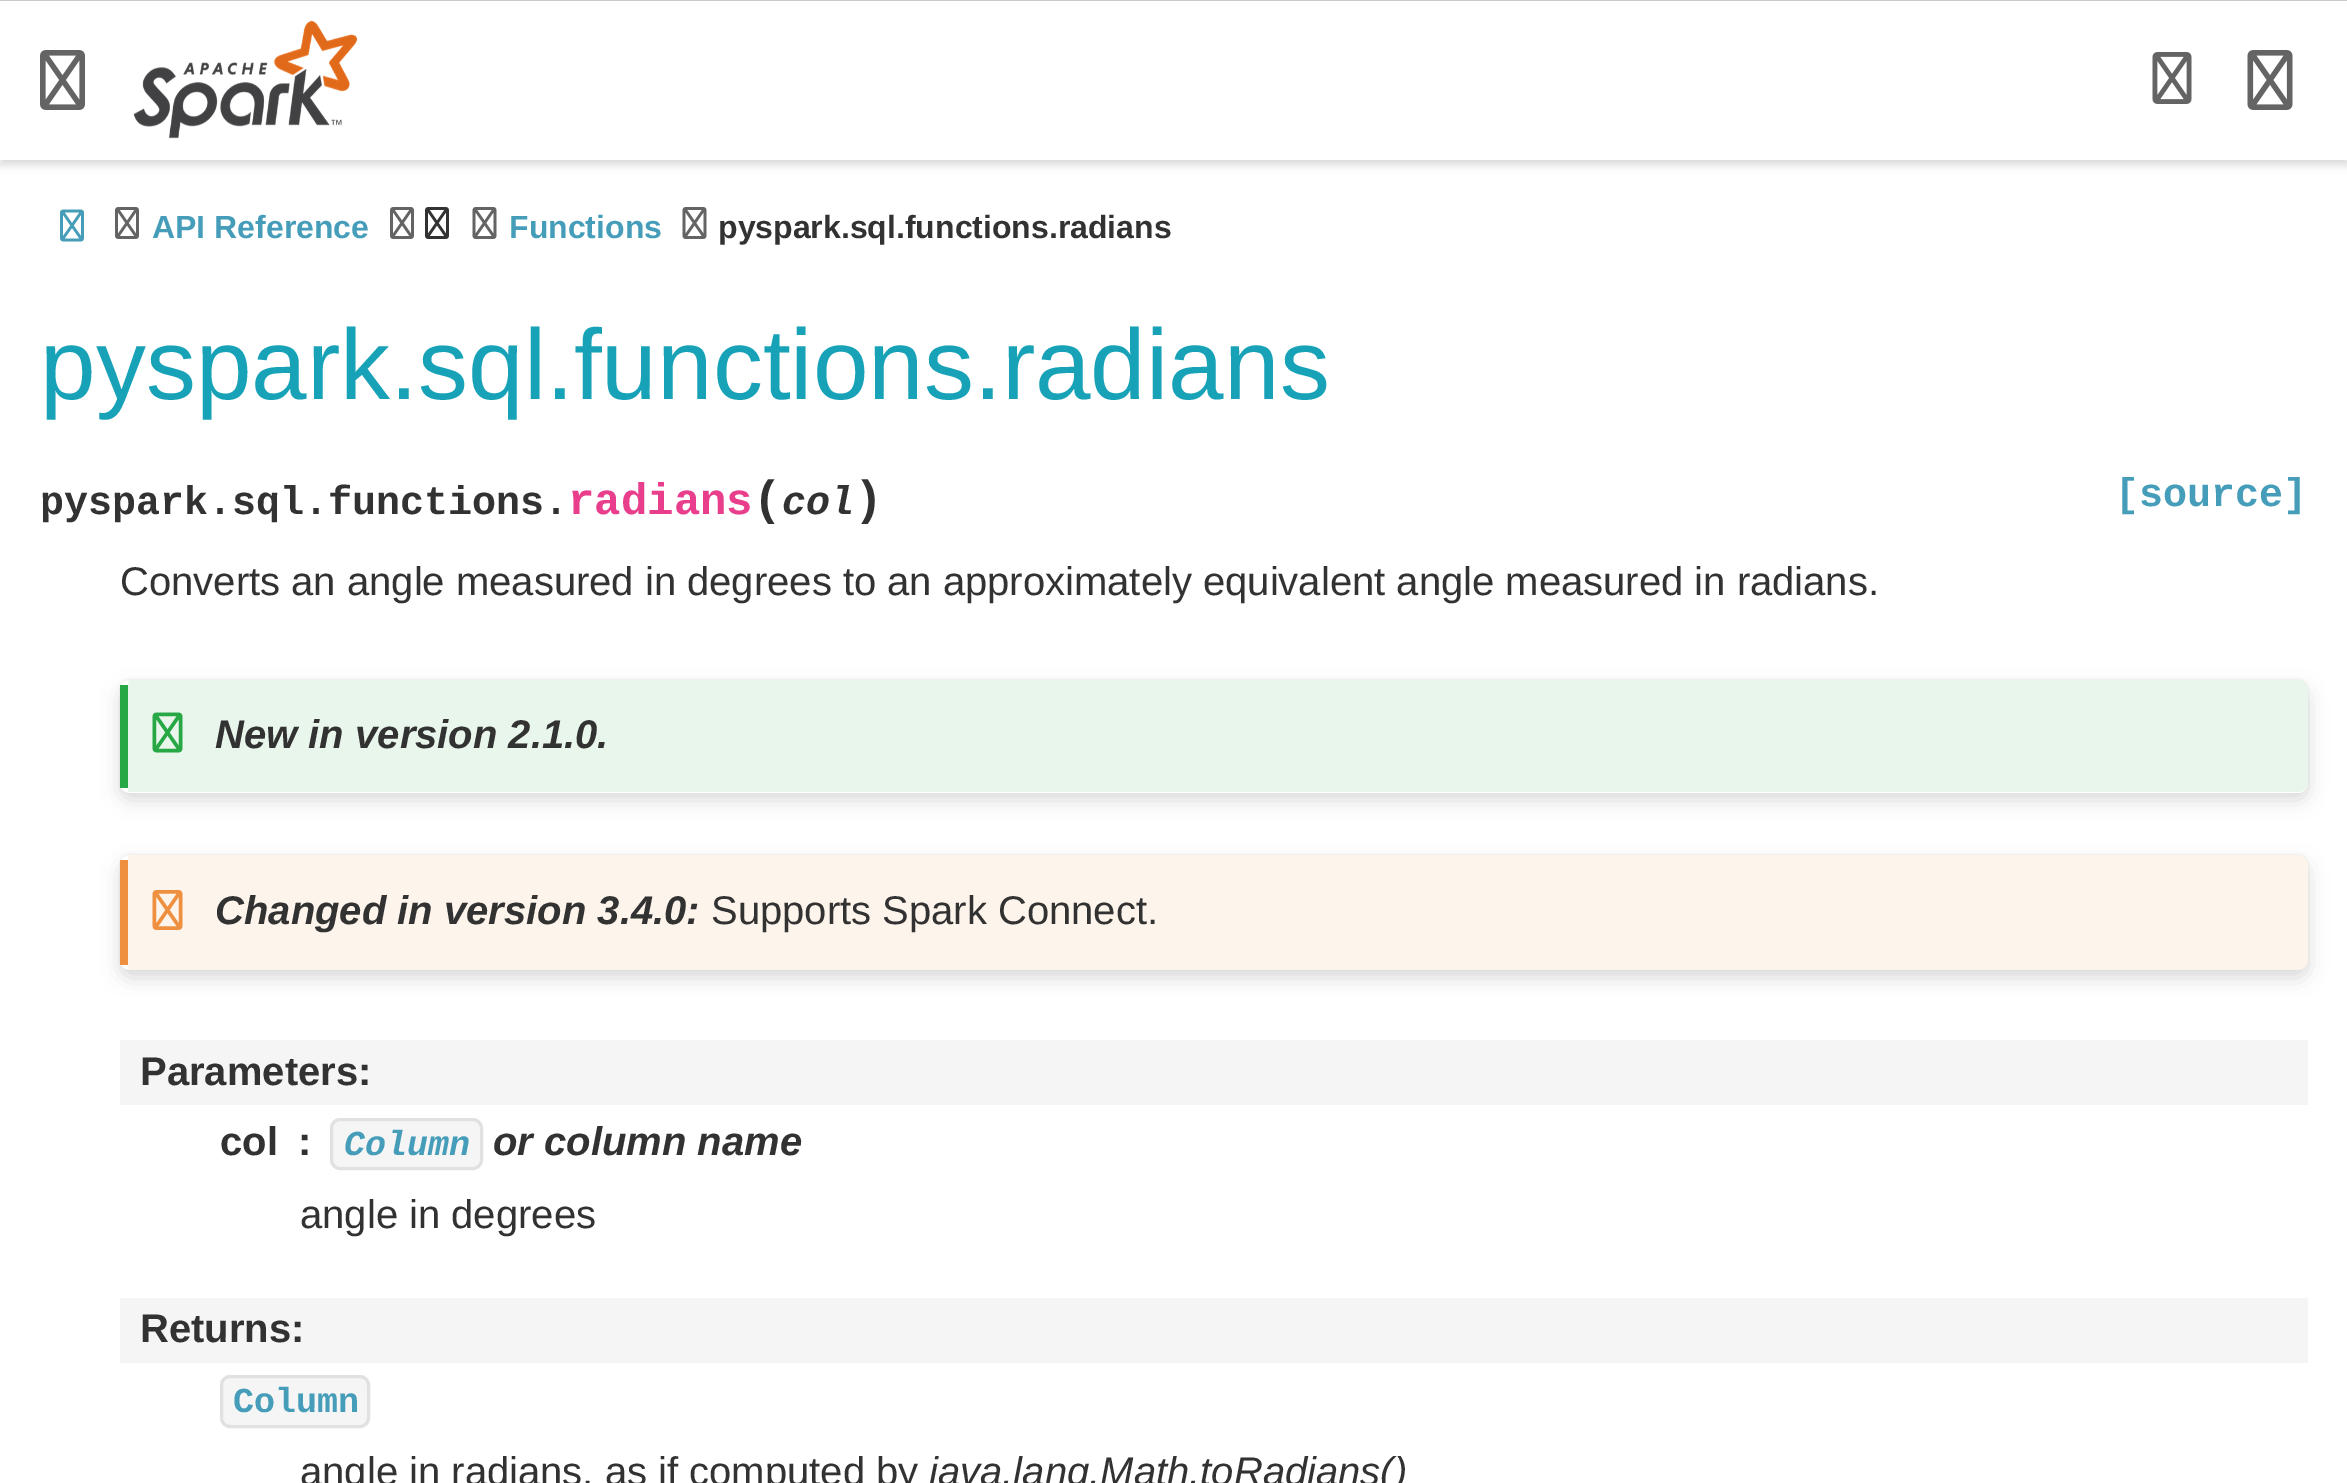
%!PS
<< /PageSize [2347 1483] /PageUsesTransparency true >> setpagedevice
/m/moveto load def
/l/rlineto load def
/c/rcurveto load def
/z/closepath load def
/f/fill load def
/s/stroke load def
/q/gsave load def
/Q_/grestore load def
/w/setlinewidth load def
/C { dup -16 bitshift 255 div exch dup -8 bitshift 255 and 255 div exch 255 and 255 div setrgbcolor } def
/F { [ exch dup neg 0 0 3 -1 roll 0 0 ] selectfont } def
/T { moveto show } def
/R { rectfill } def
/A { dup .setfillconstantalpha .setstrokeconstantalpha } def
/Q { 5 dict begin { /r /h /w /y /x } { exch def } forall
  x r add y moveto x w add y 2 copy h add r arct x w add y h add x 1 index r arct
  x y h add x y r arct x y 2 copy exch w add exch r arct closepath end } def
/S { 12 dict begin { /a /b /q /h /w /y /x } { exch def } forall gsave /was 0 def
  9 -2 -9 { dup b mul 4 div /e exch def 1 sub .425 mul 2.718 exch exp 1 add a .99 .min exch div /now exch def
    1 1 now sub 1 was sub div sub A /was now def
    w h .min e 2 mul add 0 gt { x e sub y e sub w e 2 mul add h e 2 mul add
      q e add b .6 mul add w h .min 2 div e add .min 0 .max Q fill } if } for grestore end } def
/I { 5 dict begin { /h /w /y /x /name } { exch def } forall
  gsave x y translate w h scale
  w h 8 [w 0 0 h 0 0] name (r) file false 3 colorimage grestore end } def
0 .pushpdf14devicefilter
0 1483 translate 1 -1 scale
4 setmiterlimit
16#FFFFFF C
0 0 2347 1483 R
q
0 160 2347 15 rectclip
16#D8D8D8 C
0 5 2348 160 0 5 1 S
Q_
(1.rgb) 40 50 45 60 I
(2.rgb) 133 20 225 119 I
(3.rgb) 2152 52 40 52 I
(4.rgb) 2247 50 46 60 I
16#C9C9C9 C
0 0 2347 1 R
(5.rgb) 60 209 24 33 I
(6.rgb) 115 207 24 32 I
/LiberationSans-Bold 32 F
16#459DB9 C
(API Reference) 152 238 T
(6.rgb) 390 207 24 32 I
(7.rgb) 425 207 24 32 I
(8.rgb) 472 207 25 32 I
(Functions) 509 238 T
(8.rgb) 682 207 25 32 I
16#323232 C
(pyspark.sql.functions.radians) 718 238 T
/LiberationSans-Regular 100 F
16#17A2B8 C
(pyspark.sql.functions.radians) 40 399 T
/LiberationMono-Bold 40 F
16#323232 C
(pyspark.sql.functions.) 40 514 T
/LiberationMono-Bold 44 F
16#E83E8C C
(radians) 568 514 T
/LiberationMono-Bold 48 F
16#323232 C
(\() 753 514 T
/LiberationMono-BoldItalic 40 F
(col) 782 514 T
/LiberationMono-Bold 48 F
(\)) 854 514 T
/LiberationMono-Bold 40 F
16#459DB9 C
([source]) 2115 506 T
/LiberationSans-Regular 40 F
16#323232 C
(Converts an angle measured in degrees to an approximately equivalent angle measured in radians.) 120 595 T
16#D8D8D8 C
120 680 2188 113 10 1 1 S
120 688 2188 112 10 10 1 S
16#FFFFFF C
120 680 2188 113 10 Q f
16#28A745 C
120 685 8 103 R
(9.rgb) 152 712 31 41 I
0.1 A
130 680 m -1 0 -2 2 -2 4 c 0 105 l 0 2 1 3 2 3 c 2168 0 l 5 0 10 -4 10 -10 c 0 -92 l 0 -6 -5 -10 -10 -10 c z f
/LiberationSans-BoldItalic 40 F
1 A
16#323232 C
(New in version 2.1.0.) 215 748 T
16#D8D8D8 C
120 855 2188 115 10 1 1 S
120 863 2188 115 10 10 1 S
16#FFFFFF C
120 855 2188 115 10 Q f
16#EE9040 C
120 860 8 105 R
(10.rgb) 152 890 31 40 I
0.1 A
130 855 m -1 0 -2 2 -2 4 c 0 107 l 0 2 1 4 2 4 c 2168 0 l 5 0 10 -4 10 -10 c 0 -95 l 0 -6 -5 -10 -10 -10 c z f
1 A
16#323232 C
(Changed in version 3.4.0:) 215 924 T
/LiberationSans-Regular 40 F
(Supports Spark Connect.) 711 924 T
16#F5F5F5 C
120 1040 2188 65 R
/LiberationSans-Bold 40 F
16#323232 C
(Parameters:) 140 1085 T
(col) 220 1155 T
(:) 298 1155 T
16#F5F5F5 C
331.5 1119.5 150 49 8.5 Q q f Q_
16#E1E1E1 C
3 w
s
/LiberationMono-BoldItalic 35 F
16#459DB9 C
(Column) 344 1155 T
/LiberationSans-BoldItalic 40 F
16#323232 C
(or column name) 493 1155 T
/LiberationSans-Regular 40 F
(angle in degrees) 300 1228 T
16#F5F5F5 C
120 1298 2188 65 R
/LiberationSans-Bold 40 F
16#323232 C
(Returns:) 140 1342 T
16#F5F5F5 C
221.5 1376.5 147 50 8.5 Q q f Q_
16#E1E1E1 C
s
/LiberationMono-Bold 35 F
16#459DB9 C
(Column) 233 1412 T
/LiberationSans-Regular 40 F
16#323232 C
(angle in radians, as if computed by) 300 1485 T
/LiberationSans-Italic 40 F
(java.lang.Math.toRadians\(\)) 929 1485 T
.poppdf14devicefilter showpage
